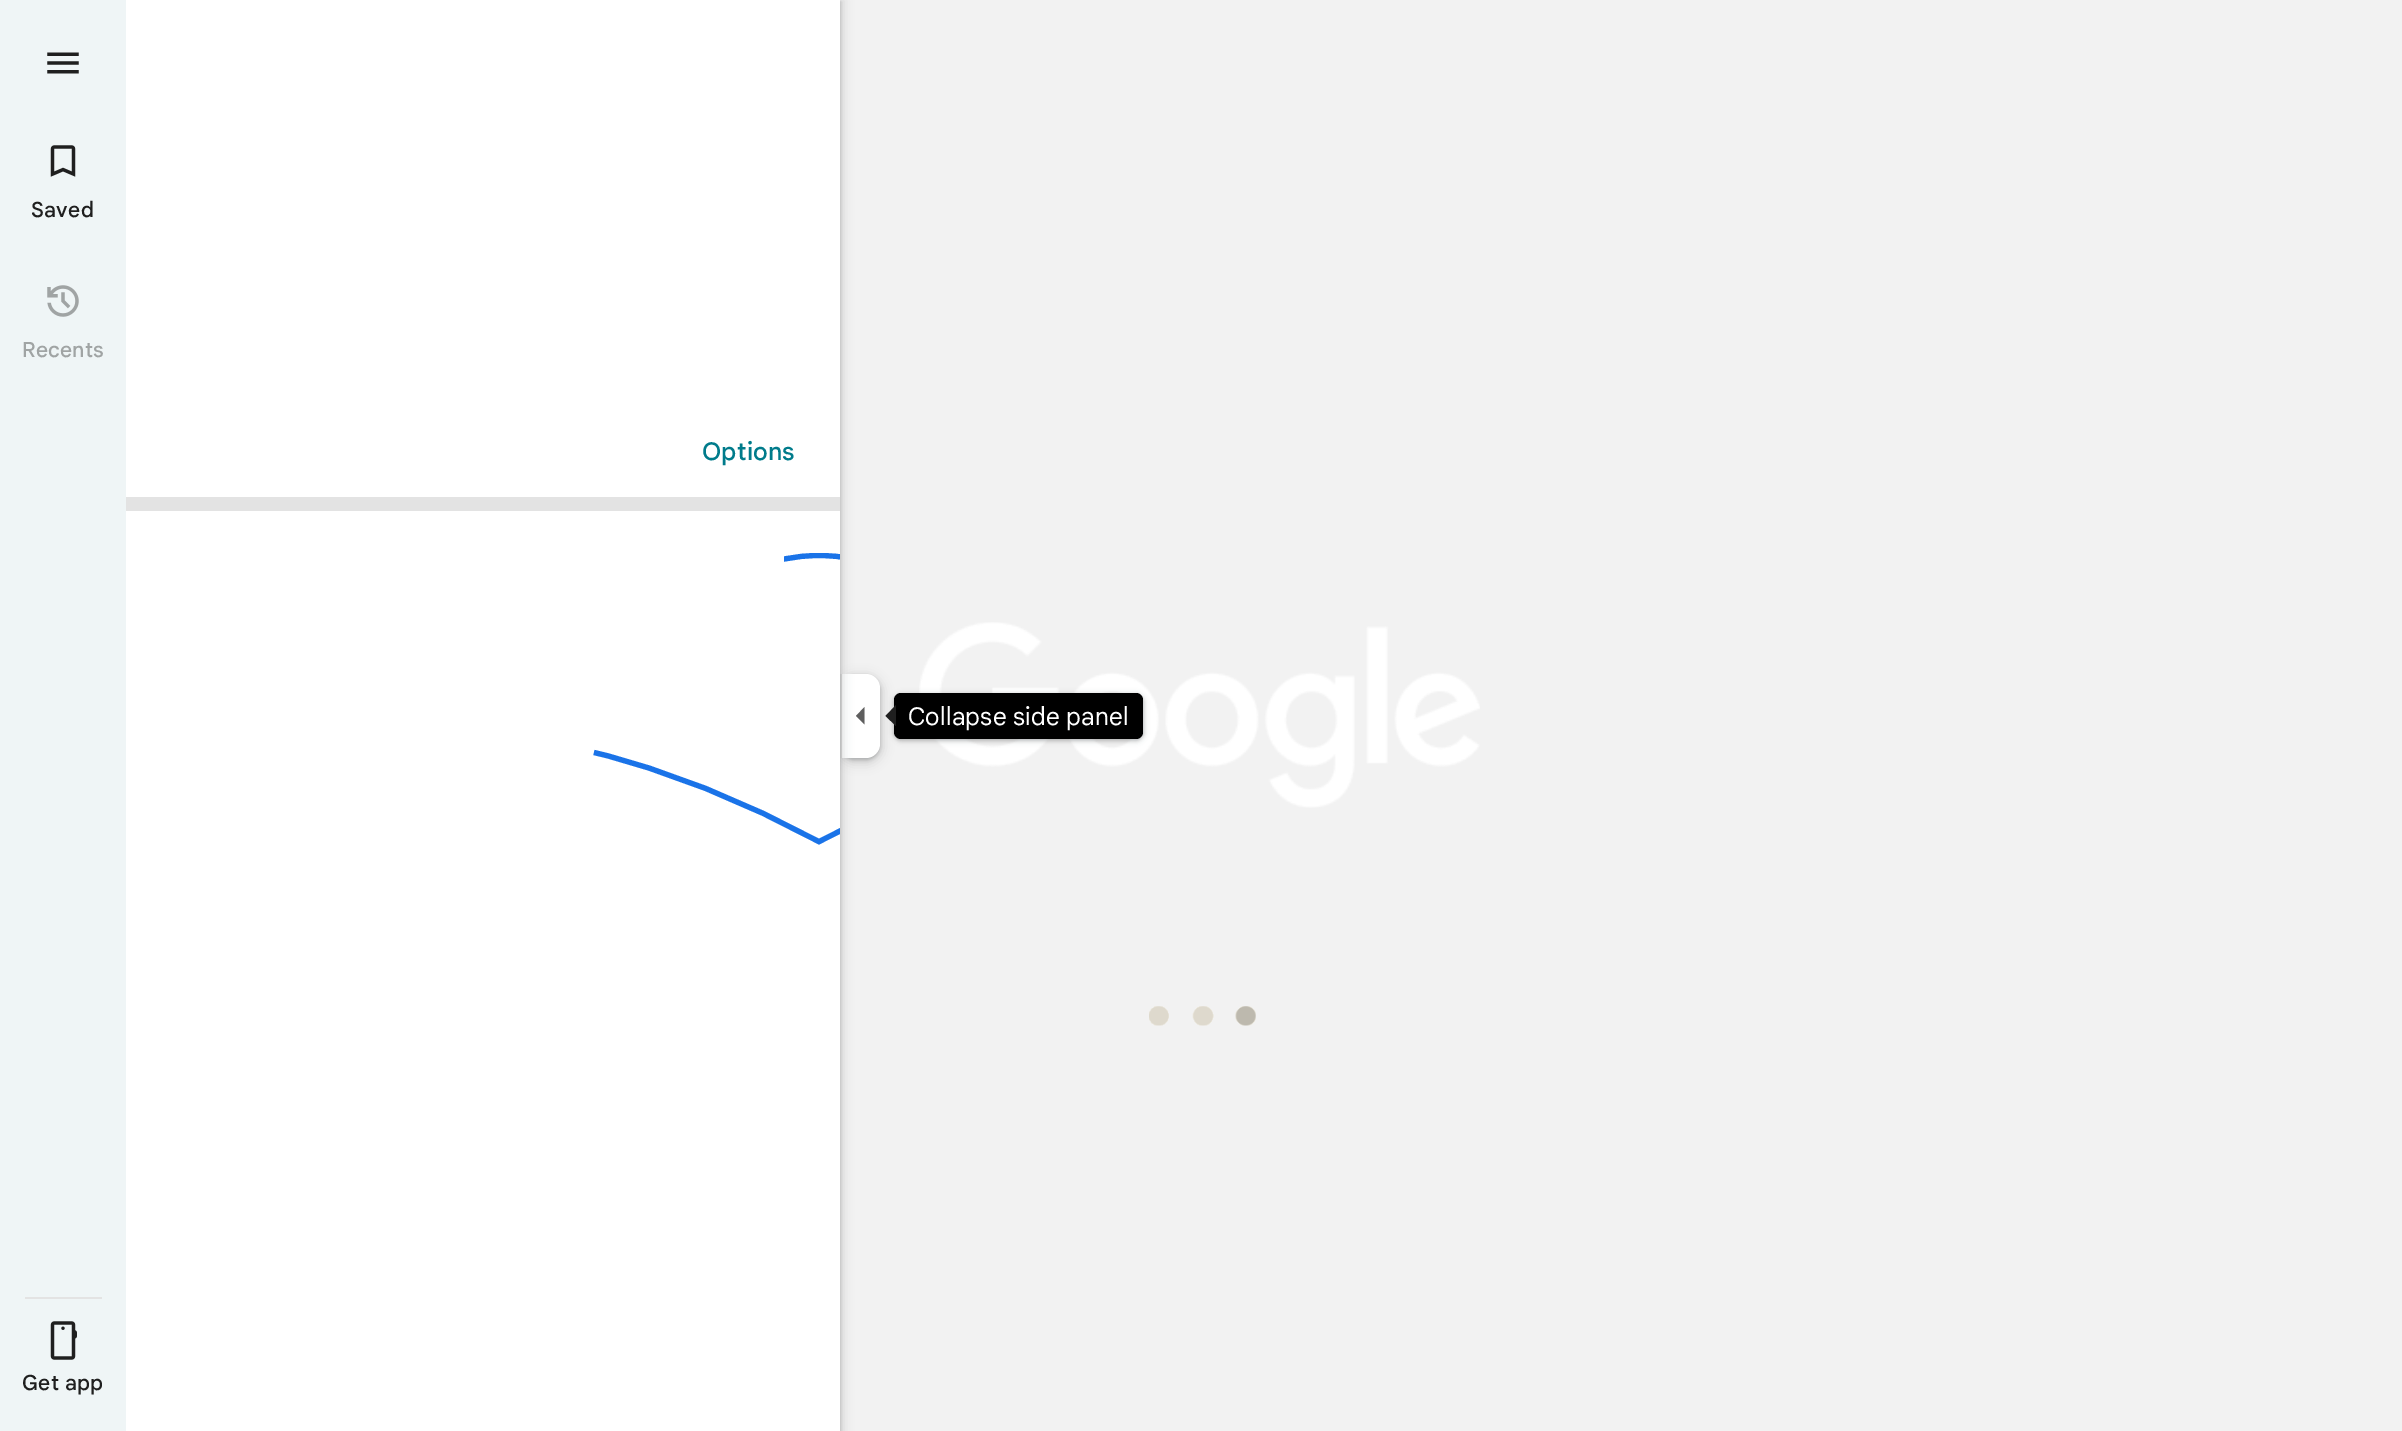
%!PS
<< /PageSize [2402 1431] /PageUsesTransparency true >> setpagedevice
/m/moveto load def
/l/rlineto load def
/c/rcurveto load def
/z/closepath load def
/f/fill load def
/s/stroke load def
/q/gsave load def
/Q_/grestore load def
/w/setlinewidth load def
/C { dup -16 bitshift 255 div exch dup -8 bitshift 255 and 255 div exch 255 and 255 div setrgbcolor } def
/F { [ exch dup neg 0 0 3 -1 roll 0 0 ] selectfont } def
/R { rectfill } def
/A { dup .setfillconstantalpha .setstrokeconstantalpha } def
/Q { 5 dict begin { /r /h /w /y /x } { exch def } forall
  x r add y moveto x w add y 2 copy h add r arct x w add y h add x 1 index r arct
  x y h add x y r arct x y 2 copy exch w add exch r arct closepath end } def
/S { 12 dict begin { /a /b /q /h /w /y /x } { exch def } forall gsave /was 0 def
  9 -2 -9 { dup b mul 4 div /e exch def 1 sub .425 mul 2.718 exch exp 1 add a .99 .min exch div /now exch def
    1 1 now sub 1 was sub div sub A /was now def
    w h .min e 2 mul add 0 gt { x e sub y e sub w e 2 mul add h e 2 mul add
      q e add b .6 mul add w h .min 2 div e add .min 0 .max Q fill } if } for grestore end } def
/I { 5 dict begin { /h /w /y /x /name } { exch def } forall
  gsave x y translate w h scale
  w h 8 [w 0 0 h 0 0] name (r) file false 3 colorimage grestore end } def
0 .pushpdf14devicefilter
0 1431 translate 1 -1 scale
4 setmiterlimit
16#F2F2F2 C
0 0 2402 1431 R
16#3C4043 C
837 674 47 91 18 5 .15 S
840 676 40 84 14 2 .3 S
16#FFFFFF C
840 674 m 26 0 l 7.5 0 14 6.5 14 14 c 0 56 l 0 7.5 -6.5 14 -14 14 c -26 0 l z f
16#E3E3E3 C
840 674 2 84 R
16#5E5E5E C
864.5 724.5 m -8.5 -8.5 l 8.5 -9 l z f
16#3C4043 C
123 0 721 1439 0 5 .15 S
126 2 714 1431 0 2 .3 S
16#EFF5F6 C
0 0 126 1431 R
(1.rgb) 47 52 32 22 I
(2.rgb) 50 145 26 32 I
/GoogleSans-Medium 21 F
16#1F1F1F C
31 217 m .25 0 (Saved) ashow
(3.rgb) 47 285 32 32 I
16#A0A4A4 C
22 357 m .25 0 (Recents) ashow
16#E3E3E3 C
25 1297 77 2 R
(4.rgb) 50 1321 27 39 I
16#1F1F1F C
22 1390 m .25 0 (Get app) ashow
16#FFFFFF C
126 0 714 1431 R
16#E3E3E3 C
126 497 714 14 R
/GoogleSans-Medium 24.5 F
16#007B8B C
702 460 m .2 0 (Options) ashow
q
784 553 56 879 rectclip
16#1A73E8 C
5.2 w
568.5 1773 m -66.5 -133.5 -104 -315 -104 -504 c 0 -189.5 37.5 -371 104 -504.5 c 66.5 -133.5 156.5 -209 250.5 -209 c 94 0 184 75.5 250.5 209 c 66.5 133.5 104 315 104 504 c 0 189.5 -37.5 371 -104 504.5 c s
Q_
q
462 553 357 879 rectclip
16#1A73E8 C
5.2 w
594 752.5 m 145 35 308 123 453 245 c 144.5 121.5 259.5 266.5 319.5 403.5 c 59.5 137 59 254 -1 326 c -60.5 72 -176 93 -321.5 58 c s
Q_
q
819 553 21 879 rectclip
16#1A73E8 C
5.2 w
594 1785 m -145.5 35 -261 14 -321.5 -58 c -60 -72 -60.5 -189 -1 -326 c 60 -137 175 -282 319.5 -403.5 c 145 -122 308 -210 453 -245 c s
Q_
(5.rgb) 919 622 561 186 I
16#3C4043 C
893 693 252 49 9 2.5 .15 S
894 695 249 45 7 2 .3 S
16#000000 C
894 693 249 46 7 Q f
16#1F1F1F C
896 705 m 0 21 l -10.5 -10 l z f
/GoogleSans-Regular 24.5 F
16#FFFFFF C
908 725 m .2 0 (Collapse side panel) ashow
(6.rgb) 1149 1006 107 20 I
.poppdf14devicefilter showpage
